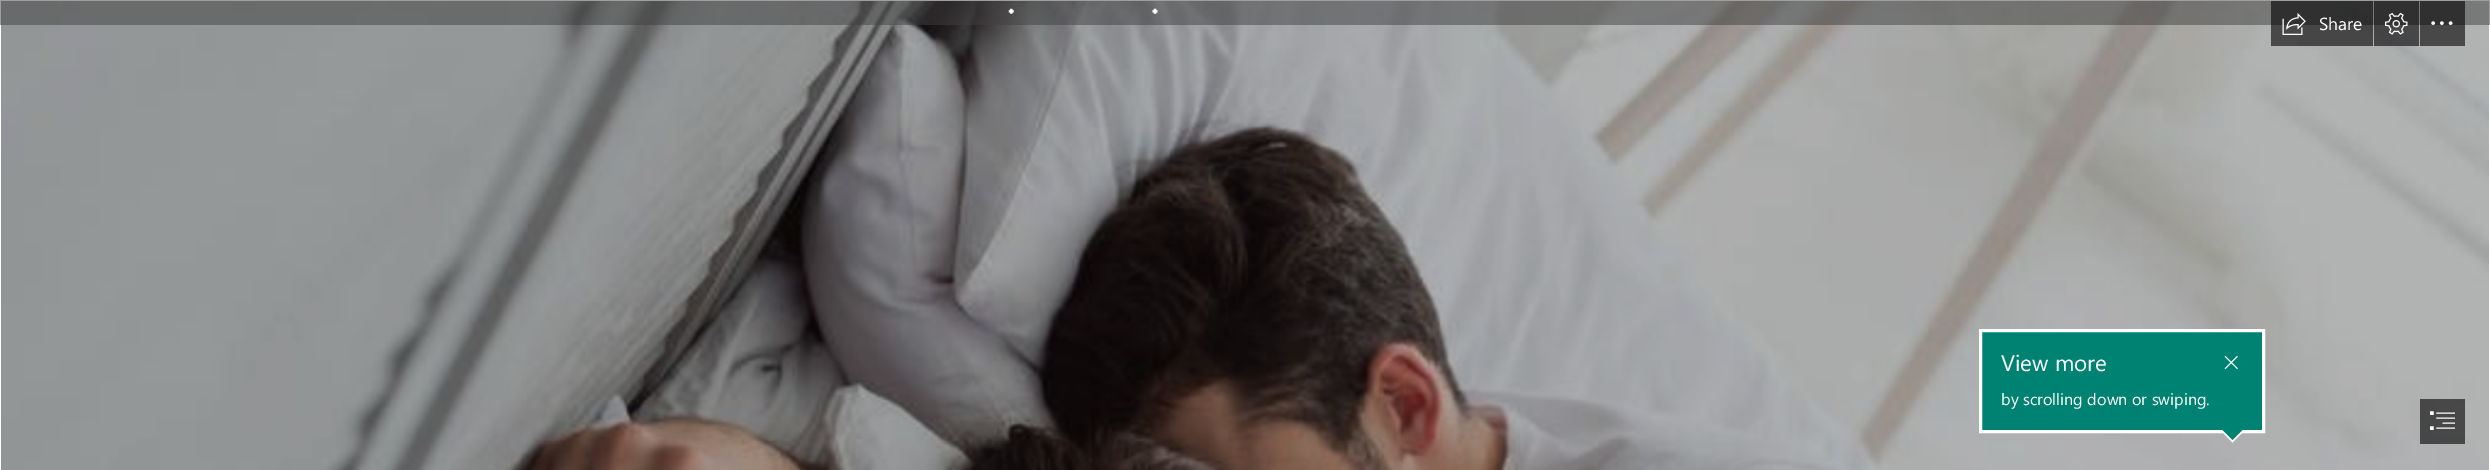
%!PS
<< /PageSize [2490 470] /PageUsesTransparency true >> setpagedevice
/m/moveto load def
/l/rlineto load def
/z/closepath load def
/f/fill load def
/s/stroke load def
/q/gsave load def
/Q_/grestore load def
/w/setlinewidth load def
/C { dup -16 bitshift 255 div exch dup -8 bitshift 255 and 255 div exch 255 and 255 div setrgbcolor } def
/F { [ exch dup neg 0 0 3 -1 roll 0 0 ] selectfont } def
/T { moveto show } def
/R { rectfill } def
/A { dup .setfillconstantalpha .setstrokeconstantalpha } def
/I { 5 dict begin { /h /w /y /x /name } { exch def } forall
  gsave x y translate w h scale
  w h 8 [w 0 0 h 0 0] name (r) file false 3 colorimage grestore end } def
0 .pushpdf14devicefilter
0 470 translate 1 -1 scale
4 setmiterlimit
16#FFFFFF C
0 0 2490 470 R
(5.rgb) 1 1 2488 469 I
0.5 A
16#404040 C
0 0 2490 25 R
0.6 A
16#000000 C
2271 1 102 45 R
1 A
(1.rgb) 2282 13 24 22 I
/SegoeUI-Regular 17.5 F
16#FFFFFF C
(Share) 2319 30 T
0.6 A
16#000000 C
2374 1 45 45 R
1 A
(2.rgb) 2385 12 23 23 I
0.6 A
2420 1 45 45 R
1 A
(3.rgb) 2431 21 22 4 I
(4.rgb) 1008 8 150 6 I
16#008272 C
1980.5 330.5 m 283 0 l 0 101 l -283 0 l z q f Q_
16#FFFFFF C
3 w
s
/SegoeUI-Regular 22.5 F
(View more) 2001 371 T
/SegoeUI-Regular 16.25 F
(by scrolling down or swiping.) 2001 405 T
(6.rgb) 2224 355 14 15 I
2220 430 m 25 0 l -12.5 12.5 l z f
16#008272 C
2222.5 430 m 20 0 l -10 10 l z f
0.6 A
16#000000 C
2420 399 45 45 R
1 A
(7.rgb) 2430 411 25 19 I
.poppdf14devicefilter showpage
